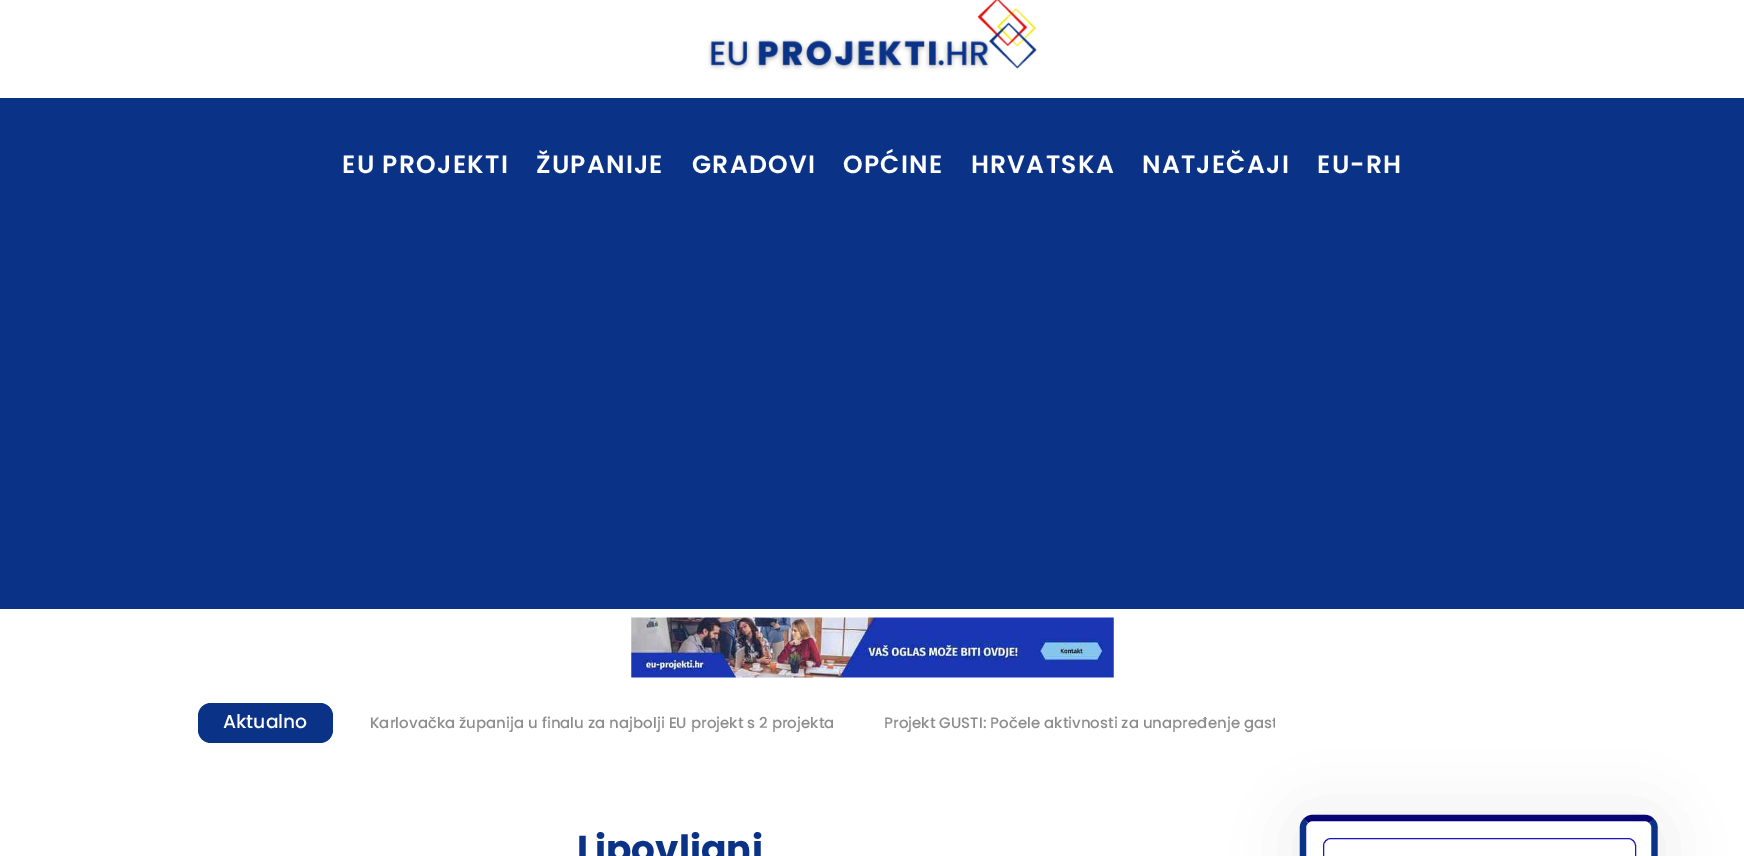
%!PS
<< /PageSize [1744 856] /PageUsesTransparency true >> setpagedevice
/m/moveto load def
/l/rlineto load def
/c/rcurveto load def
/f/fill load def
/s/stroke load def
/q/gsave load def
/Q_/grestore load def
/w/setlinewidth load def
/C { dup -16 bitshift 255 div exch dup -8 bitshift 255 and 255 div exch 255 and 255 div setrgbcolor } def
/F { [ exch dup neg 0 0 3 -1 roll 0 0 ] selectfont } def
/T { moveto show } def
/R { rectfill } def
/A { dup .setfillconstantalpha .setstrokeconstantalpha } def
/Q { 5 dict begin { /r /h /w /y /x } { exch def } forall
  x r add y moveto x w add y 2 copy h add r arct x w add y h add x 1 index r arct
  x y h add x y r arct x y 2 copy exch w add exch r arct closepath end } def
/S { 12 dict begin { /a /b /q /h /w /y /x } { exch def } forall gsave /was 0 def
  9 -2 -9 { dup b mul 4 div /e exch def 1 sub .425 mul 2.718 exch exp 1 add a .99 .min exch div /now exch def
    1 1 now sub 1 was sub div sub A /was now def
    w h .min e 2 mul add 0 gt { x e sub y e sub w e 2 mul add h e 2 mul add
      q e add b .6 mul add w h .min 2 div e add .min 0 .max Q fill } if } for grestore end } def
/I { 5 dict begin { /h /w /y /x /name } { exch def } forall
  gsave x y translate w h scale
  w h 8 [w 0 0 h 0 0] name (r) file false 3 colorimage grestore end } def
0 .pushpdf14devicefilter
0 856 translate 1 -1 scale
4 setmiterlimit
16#FFFFFF C
0 0 1744 856 R
(1.rgb) 708 0 329 70 I
16#0A3388 C
0 98 1744 511 R
/Poppins-SemiBold 25 F
16#FFFFFF C
342 173 m 1.25 0 (EU PROJEKTI) ashow
536 173 m 1.25 0 (ŽUPANIJE) ashow
692 173 m 1.25 0 (GRADOVI) ashow
843 173 m 1.25 0 (OPĆINE) ashow
971 173 m 1.25 0 (HRVATSKA) ashow
1142 173 m 1.25 0 (NATJEČAJI) ashow
1317 173 m 1.25 0 (EU-RH) ashow
(2.rgb) 631 617 483 61 I
16#0A3388 C
198 703 135 40 13 Q f
/Poppins-Medium 18.75 F
16#FFFFFF C
(Aktualno) 223 728 T
/Poppins-Medium 15 F
16#8C8C8C C
(Karlovačka županija u finalu za najbolji EU projekt s 2 projekta) 370 728 T
q
345 705 930 35 rectclip
(Projekt GUSTI: Počele aktivnosti za unapređenje gast) 884 728 T
Q_
/Poppins-Bold 37.5 F
16#0A3388 C
(Lipovljani) 577 862 T
16#000000 C
1300 818 358 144 13 31 .08 S
16#FFFFFF C
1300 815 358 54 13 Q f
16#070575 C
6.2 w
1306 821 m 1.5 -2 4 -3 6.5 -3 c 332.5 0 l 2.5 0 5 1 6.5 3 c s
16#0A3388 C
1651.5 821 m 2 1.5 3 4 3 6.5 c 0 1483.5 l 0 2.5 -1 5 -3 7 c -1.5 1.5 -4 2.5 -6.5 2.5 c -332.5 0 l -2.5 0 -5 -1 -6.5 -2.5 c -2 -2 -3 -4.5 -3 -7 c 0 -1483.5 l 0 -2.5 1 -5 3 -6.5 c s
16#1818BF C
1 w
1323.5 838.5 312 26 7.5 Q s
.poppdf14devicefilter showpage
